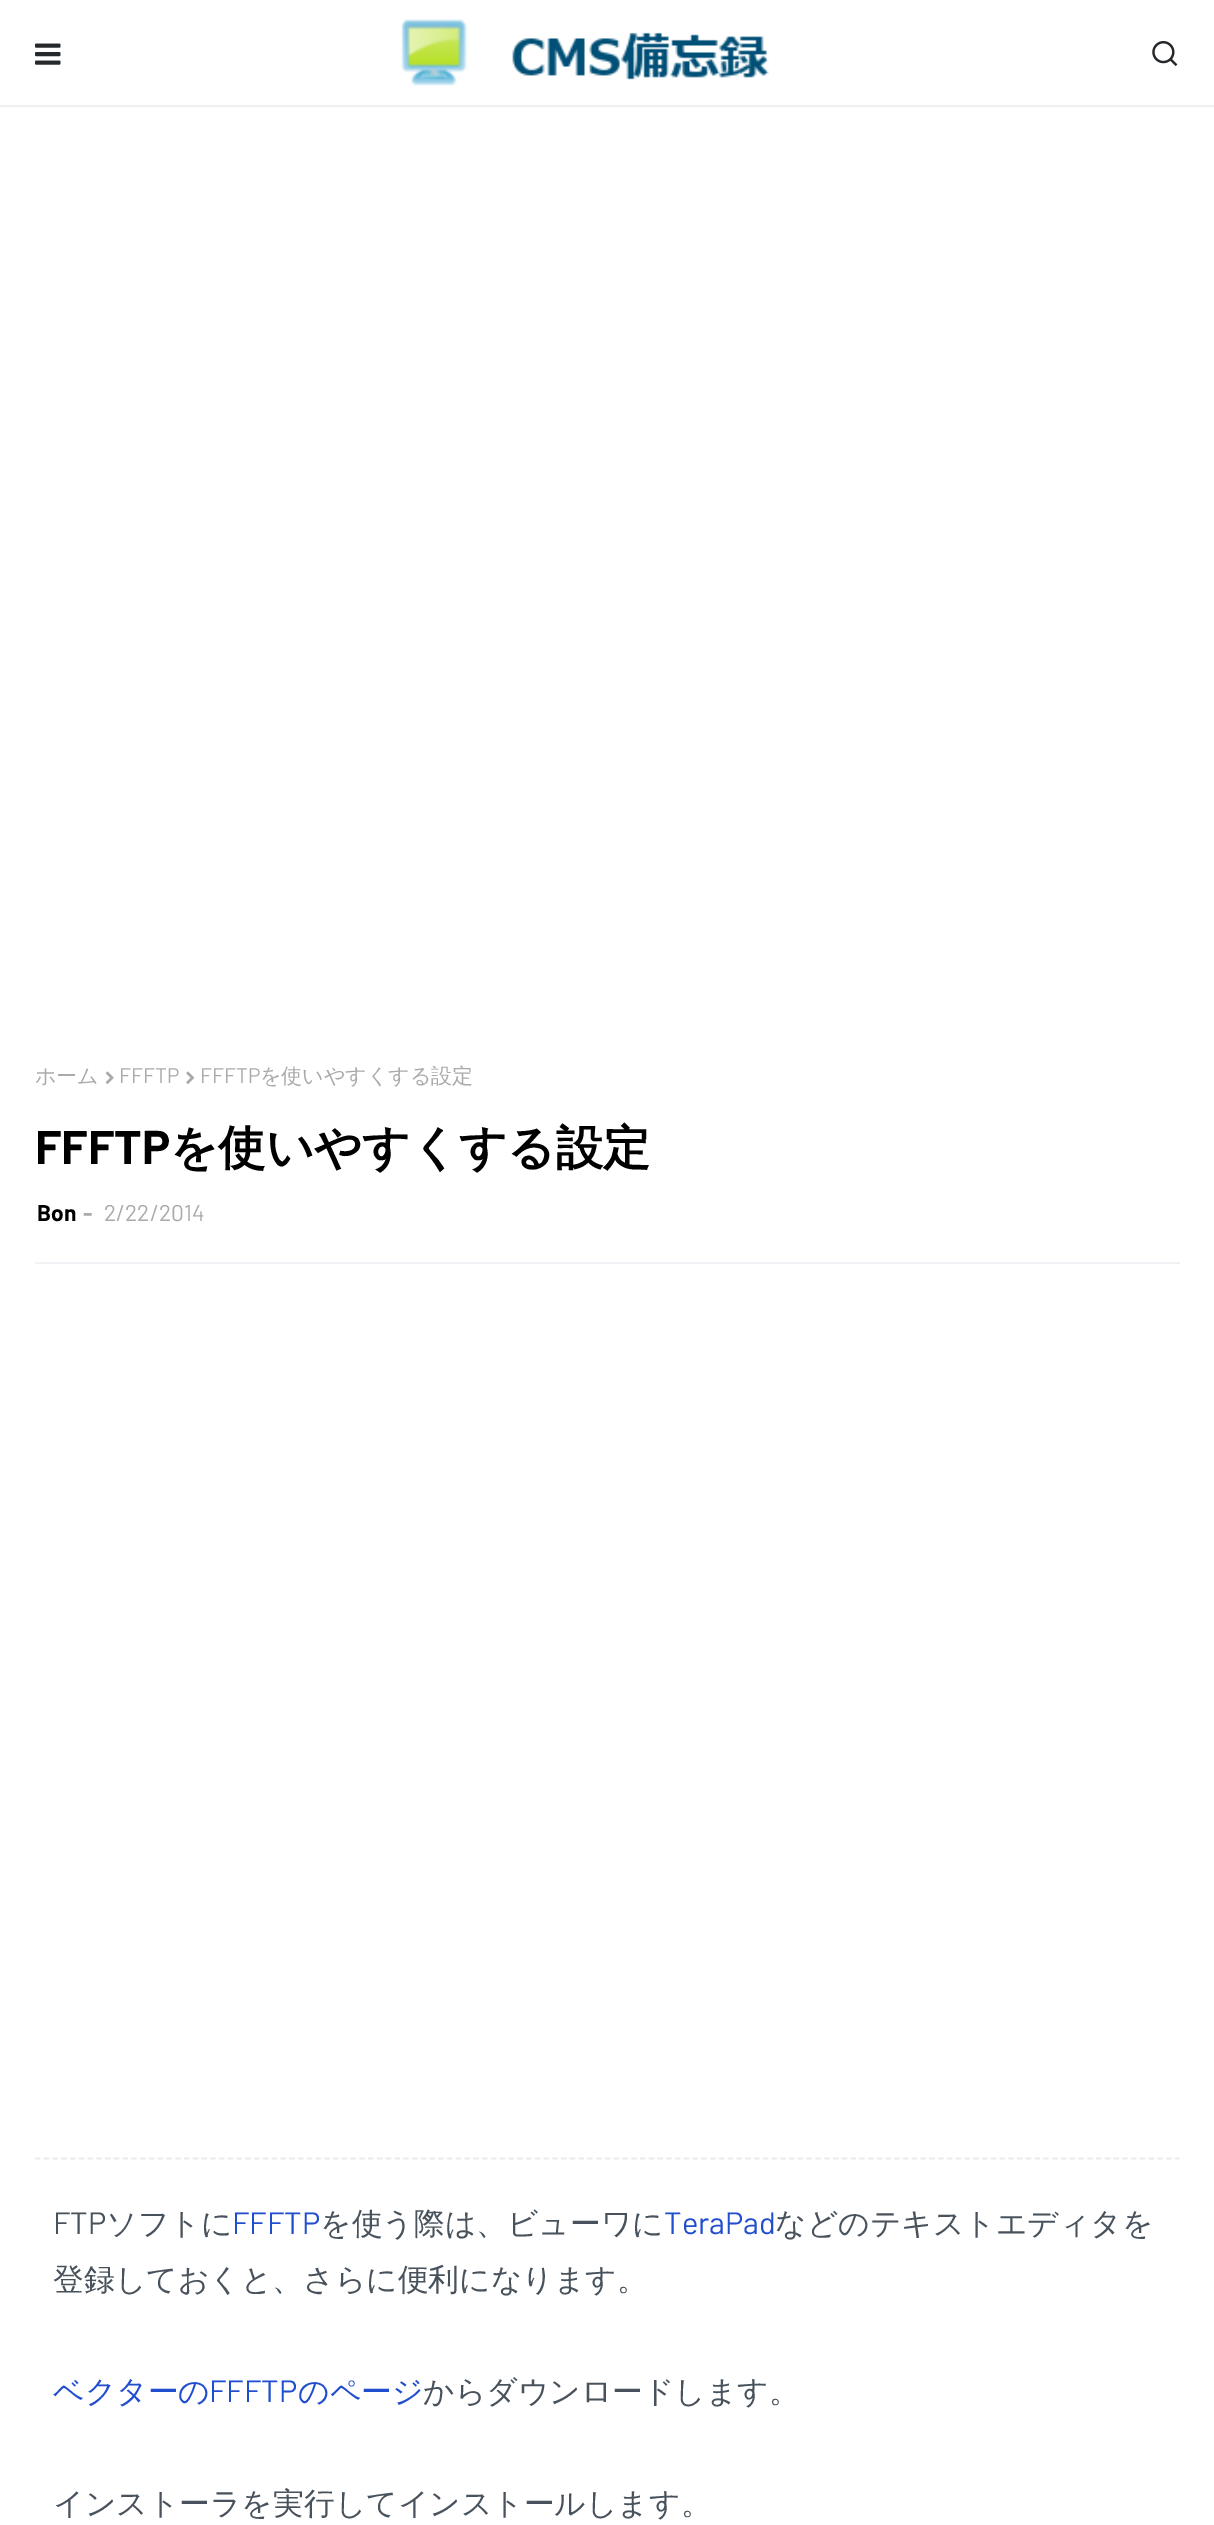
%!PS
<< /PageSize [1214 2525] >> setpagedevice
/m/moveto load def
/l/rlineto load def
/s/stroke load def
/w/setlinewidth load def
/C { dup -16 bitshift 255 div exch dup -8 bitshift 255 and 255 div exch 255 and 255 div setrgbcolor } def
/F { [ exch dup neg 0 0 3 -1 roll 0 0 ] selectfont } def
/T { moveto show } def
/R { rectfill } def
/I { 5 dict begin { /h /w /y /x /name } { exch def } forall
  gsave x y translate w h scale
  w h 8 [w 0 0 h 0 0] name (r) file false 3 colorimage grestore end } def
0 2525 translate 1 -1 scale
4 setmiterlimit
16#FFFFFF C
0 0 1214 2525 R
16#F0F0F0 C
0 105 1214 2 R
(1.rgb) 35 43 26 22 I
(2.rgb) 400 19 369 67 I
(3.rgb) 1152 41 26 26 I
/WenQuanYiZenHei-Medium 21 F
16#AAAAAA C
(ホーム) 35 1083 T
(4.rgb) 105 1071 9 13 I
/Barlow-Regular 21 F
(FFFTP) 119 1083 T
(5.rgb) 186 1071 9 13 I
(FFFTP) 200 1083 T
/WenQuanYiZenHei-Medium 21 F
(を使いやすくする設定) 260 1083 T
/Barlow-Bold 47.25 F
16#000000 C
(FFFTP) 35 1164 T
/WenQuanYiZenHei-Bold 47.25 F
(を使いやすくする設定) 170 1164 T
/Barlow-Bold 22.75 F
(Bon) 37 1221 T
16#AAAAAA C
(-) 83 1221 T
/Barlow-Regular 22.75 F
(2/22/2014) 104 1221 T
16#F2F2F6 C
35 1262 1145 2 R
16#EBEBEB C
1.8 w
[5.25 3.52] 0 setdash
35 2158.5 m 1144.5 0 l s
/Barlow-Regular 30.8 F
16#48525C C
(FTP) 53 2234 T
/WenQuanYiZenHei-Medium 30.8 F
(ソフトに) 106 2234 T
/Barlow-Regular 30.8 F
16#204ECF C
(FFFTP) 232 2234 T
/WenQuanYiZenHei-Medium 30.8 F
16#48525C C
(を使う際は、ビューワに) 320 2234 T
/Barlow-Regular 30.8 F
16#204ECF C
(TeraPad) 664 2234 T
/WenQuanYiZenHei-Medium 30.8 F
16#48525C C
(などのテキストエディタを) 775 2234 T
(登録しておくと、さらに便利になります。) 53 2290 T
16#204ECF C
(ベクターの) 53 2402 T
/Barlow-Regular 30.8 F
(FFFTP) 209 2402 T
/WenQuanYiZenHei-Medium 30.8 F
(のページ) 298 2402 T
16#48525C C
(からダウンロードします。) 423 2402 T
(インストーラを実行してインストールします。) 53 2514 T
showpage
